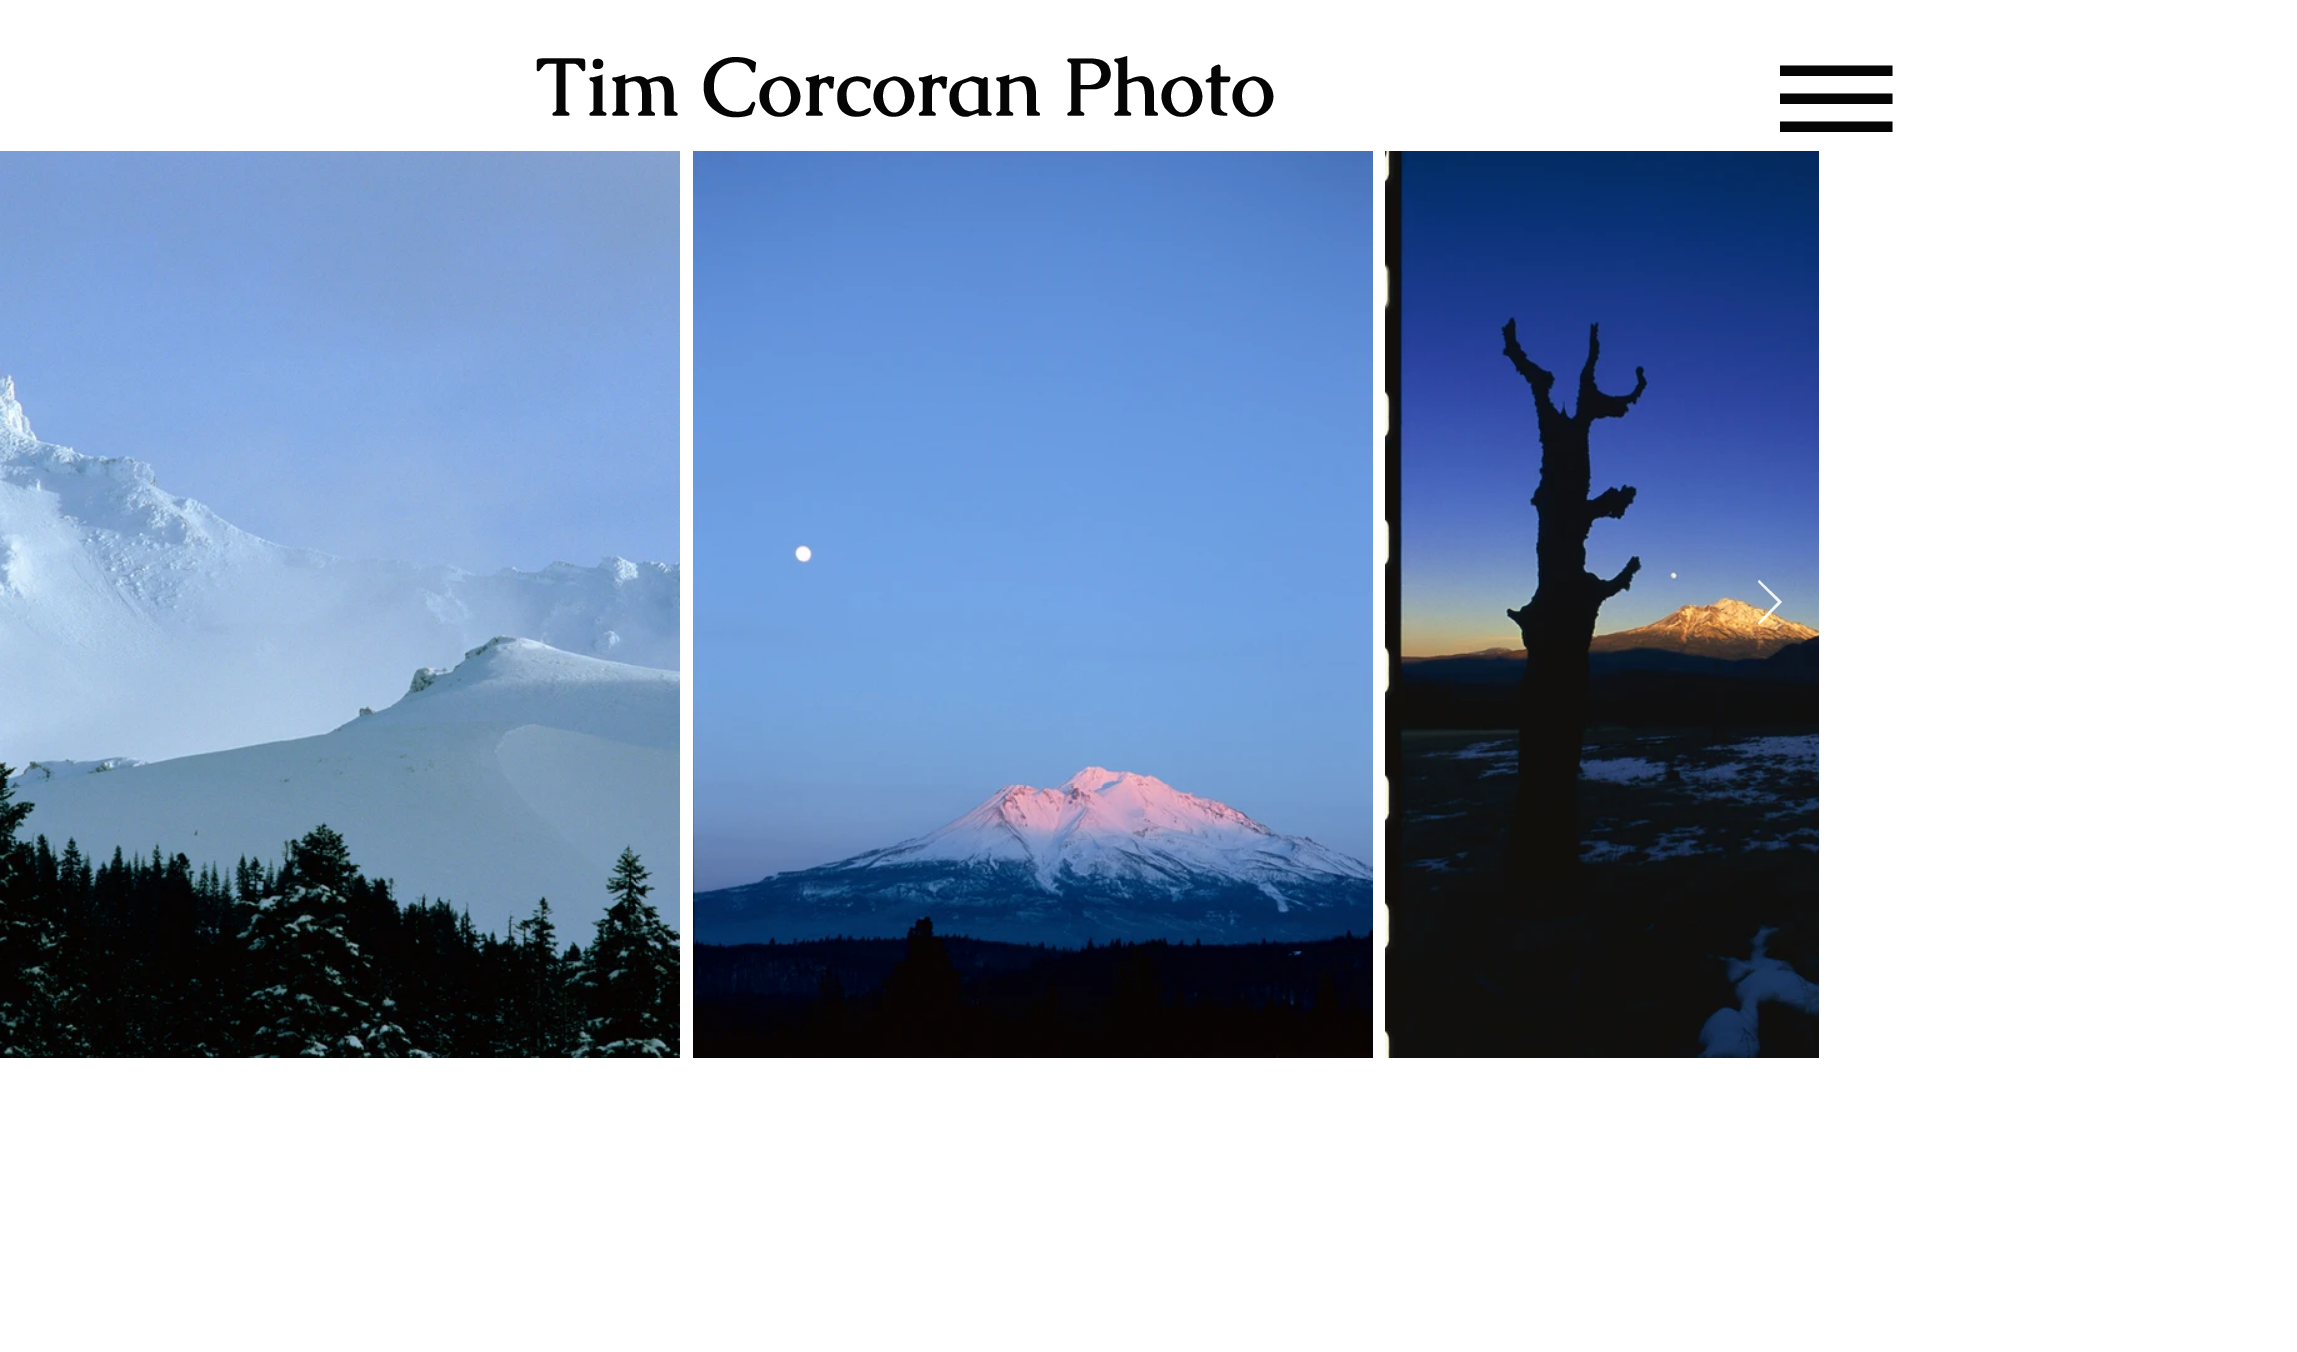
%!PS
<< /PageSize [2297 1352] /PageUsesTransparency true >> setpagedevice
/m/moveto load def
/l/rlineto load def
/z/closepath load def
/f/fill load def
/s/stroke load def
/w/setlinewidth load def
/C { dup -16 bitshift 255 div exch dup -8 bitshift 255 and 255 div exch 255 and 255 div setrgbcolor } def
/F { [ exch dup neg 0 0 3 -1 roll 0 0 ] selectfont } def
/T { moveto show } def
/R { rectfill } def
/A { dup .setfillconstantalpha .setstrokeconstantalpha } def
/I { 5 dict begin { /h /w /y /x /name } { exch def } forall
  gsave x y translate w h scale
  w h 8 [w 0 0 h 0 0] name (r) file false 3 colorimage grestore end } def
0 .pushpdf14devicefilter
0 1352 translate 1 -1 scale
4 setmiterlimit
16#FFFFFF C
0 0 2297 1352 R
/Caudex-Bold 81.25 F
16#050505 C
(Tim Corcoran Photo) 536 115 T
1782 69 108 4 R
3.8 w
1890.5 67.5 m 0 6.5 l -108.5 0 l 0 -6.5 l z s
1782 97 108 4 R
1890.5 95.5 m 0 6.5 l -108.5 0 l 0 -6.5 l z s
1782 125 108 4 R
1890.5 123.5 m 0 6.5 l -108.5 0 l 0 -6.5 l z s
(1.rgb) 0 151 680 907 I
(2.rgb) 693 151 680 907 I
(3.rgb) 1385 151 434 907 I
0.9 A
16#FFFFFF C
1758 582 m 1 -2 l 23 22 l -23 23 l -1 -2 l 20 -21 l z f
.poppdf14devicefilter showpage
